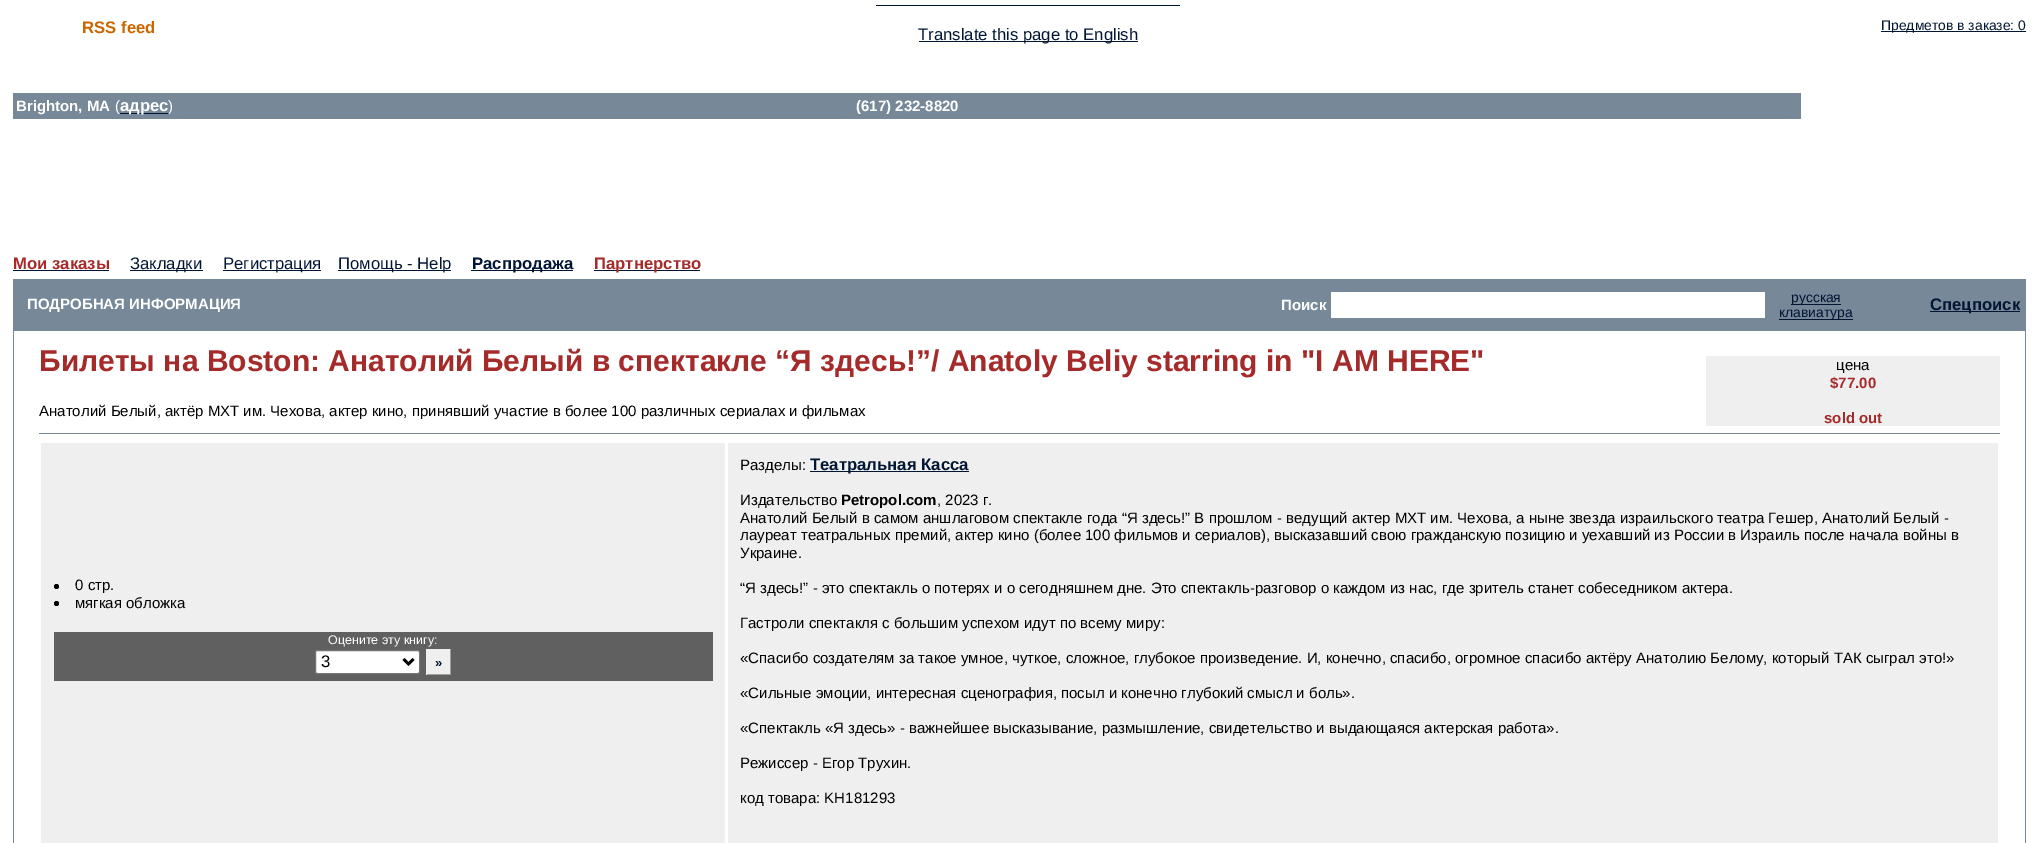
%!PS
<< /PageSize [2038 843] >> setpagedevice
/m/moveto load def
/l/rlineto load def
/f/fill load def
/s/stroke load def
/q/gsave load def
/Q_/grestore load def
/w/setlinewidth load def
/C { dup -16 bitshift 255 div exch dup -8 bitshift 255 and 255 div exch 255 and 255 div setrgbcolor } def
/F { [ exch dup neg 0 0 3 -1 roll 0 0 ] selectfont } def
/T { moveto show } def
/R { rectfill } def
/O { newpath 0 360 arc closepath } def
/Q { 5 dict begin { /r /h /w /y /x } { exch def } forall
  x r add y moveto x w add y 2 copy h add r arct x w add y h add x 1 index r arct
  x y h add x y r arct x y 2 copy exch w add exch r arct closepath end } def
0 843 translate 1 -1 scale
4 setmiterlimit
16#FFFFFF C
0 0 2038 843 R
/LiberationSans-Bold 16.7 F
16#CC6600 C
(RSS feed) 82 33 T
16#011633 C
876 5 304 1 R
919 41 219 1 R
/LiberationSans-Regular 16.7 F
(Translate this page to English) 918 40 T
1881 31 145 1 R
/LiberationSans-Regular 13.9 F
(Предметов в заказе: 0) 1881 30 T
16#778899 C
13 93 1788 26 R
/LiberationSans-Bold 15 F
16#FFFFFF C
(Brighton, MA) 16 111 T
/LiberationSans-Regular 15 F
(\() 115 111 T
16#011633 C
120 113 49 1 R
/LiberationSans-Bold 16.7 F
16#FFFFFF C
(адрес) 120 111 T
/LiberationSans-Regular 15 F
(\)) 168 111 T
/LiberationSans-Bold 15 F
(\(617\) 232-8820) 856 111 T
/LiberationSans-Bold 16.7 F
16#A52A2A C
(Мои заказы) 13 269 T
16#011633 C
13 270 96 1 R
130 270 73 1 R
/LiberationSans-Regular 16.7 F
(Закладки) 130 269 T
223 270 98 1 R
(Регистрация) 223 269 T
338 270 113 1 R
(Помощь - Help) 338 269 T
471 270 102 1 R
/LiberationSans-Bold 16.7 F
(Распродажа) 472 269 T
594 270 106 1 R
16#A52A2A C
(Партнерство) 594 269 T
16#778899 C
13 279 2013 564 R
/LiberationSans-Bold 15 F
16#FFFFFF C
(ПОДРОБНАЯ ИНФОРМАЦИЯ) 27 309 T
(Поиск) 1281 310 T
1331 292 434 26 R
16#011633 C
1791 304 50 1 R
/LiberationSans-Regular 13.9 F
(русская) 1791 302 T
1779 319 74 1 R
(клавиатура) 1779 317 T
1930 311 90 1 R
/LiberationSans-Bold 16.7 F
(Спецпоиск) 1930 310 T
16#FFFFFF C
14 331 2011 512 R
/LiberationSans-Bold 30 F
16#A52A2A C
(Билеты на Boston: Анатолий Белый в спектакле “Я здесь!”/ Anatoly Beliy starring in "I AM HERE") 39 371 T
/LiberationSans-Regular 15 F
16#000000 C
(Анатолий Белый, актёр МХТ им. Чехова, актер кино, принявший участие в более 100 различных сериалах и фильмах) 39 416 T
16#EFEFEF C
1706 356 294 70 R
16#000000 C
(цена) 1836 370 T
/LiberationSans-Bold 15 F
16#A52A2A C
($77.00) 1830 388 T
(sold out) 1824 423 T
16#778899 C
39 433 1961 1 R
16#EFEFEF C
41 443 684 400 R
16#000000 C
56.5 586.5 2.5 O f
/LiberationSans-Regular 15 F
(0 стр.) 75 590 T
56.5 603.5 2.5 O f
(мягкая обложка) 75 608 T
16#606060 C
54 632 659 49 R
/LiberationSans-Regular 12.5 F
16#FFFFFF C
(Оцените эту книгу:) 328 644 T
315.5 650.5 104 23 2 Q q f Q_
16#767676 C
s
16#000000 C
2.5 w
403.5 659 m 5 5 l 5 -5 l s
/LiberationSans-Regular 16.7 F
(3) 321 667 T
16#EFEFEF C
427 649 23 25 R
16#9F9F9F C
450 649 1 26 R
426 674 25 1 R
16#EFEFEF C
426 649 1 26 R
/LiberationSans-Bold 13 F
16#011633 C
(») 435 667 T
16#EFEFEF C
728 443 1270 400 R
/LiberationSans-Regular 15 F
16#000000 C
(Разделы:) 740 470 T
16#011633 C
810 471 159 1 R
/LiberationSans-Bold 16.7 F
(Театральная Касса) 810 470 T
/LiberationSans-Regular 15 F
16#000000 C
(Издательство) 740 505 T
/LiberationSans-Bold 15 F
(Petropol.com) 841 505 T
/LiberationSans-Regular 15 F
(, 2023 г.) 937 505 T
(Анатолий Белый в самом аншлаговом спектакле года “Я здесь!” В прошлом - ведущий актер МХТ им. Чехова, а ныне звезда израильского театра Гешер, Анатолий Белый -) 740 523 T
(лауреат театральных премий, актер кино \(более 100 фильмов и сериалов\), высказавший свою гражданскую позицию и уехавший из России в Израиль после начала войны в) 740 540 T
(Украине.) 740 558 T
(“Я здесь!” - это спектакль о потерях и о сегодняшнем дне. Это спектакль-разговор о каждом из нас, где зритель станет собеседником актера.) 740 593 T
(Гастроли спектакля с большим успехом идут по всему миру:) 740 628 T
(«Спасибо создателям за такое умное, чуткое, сложное, глубокое произведение. И, конечно, спасибо, огромное спасибо актёру Анатолию Белому, который ТАК сыграл это!») 740 663 T
(«Сильные эмоции, интересная сценография, посыл и конечно глубокий смысл и боль».) 740 698 T
(«Спектакль «Я здесь» - важнейшее высказывание, размышление, свидетельство и выдающаяся актерская работа».) 740 733 T
(Режиссер - Егор Трухин.) 740 768 T
(код товара: KH181293) 740 803 T
showpage
